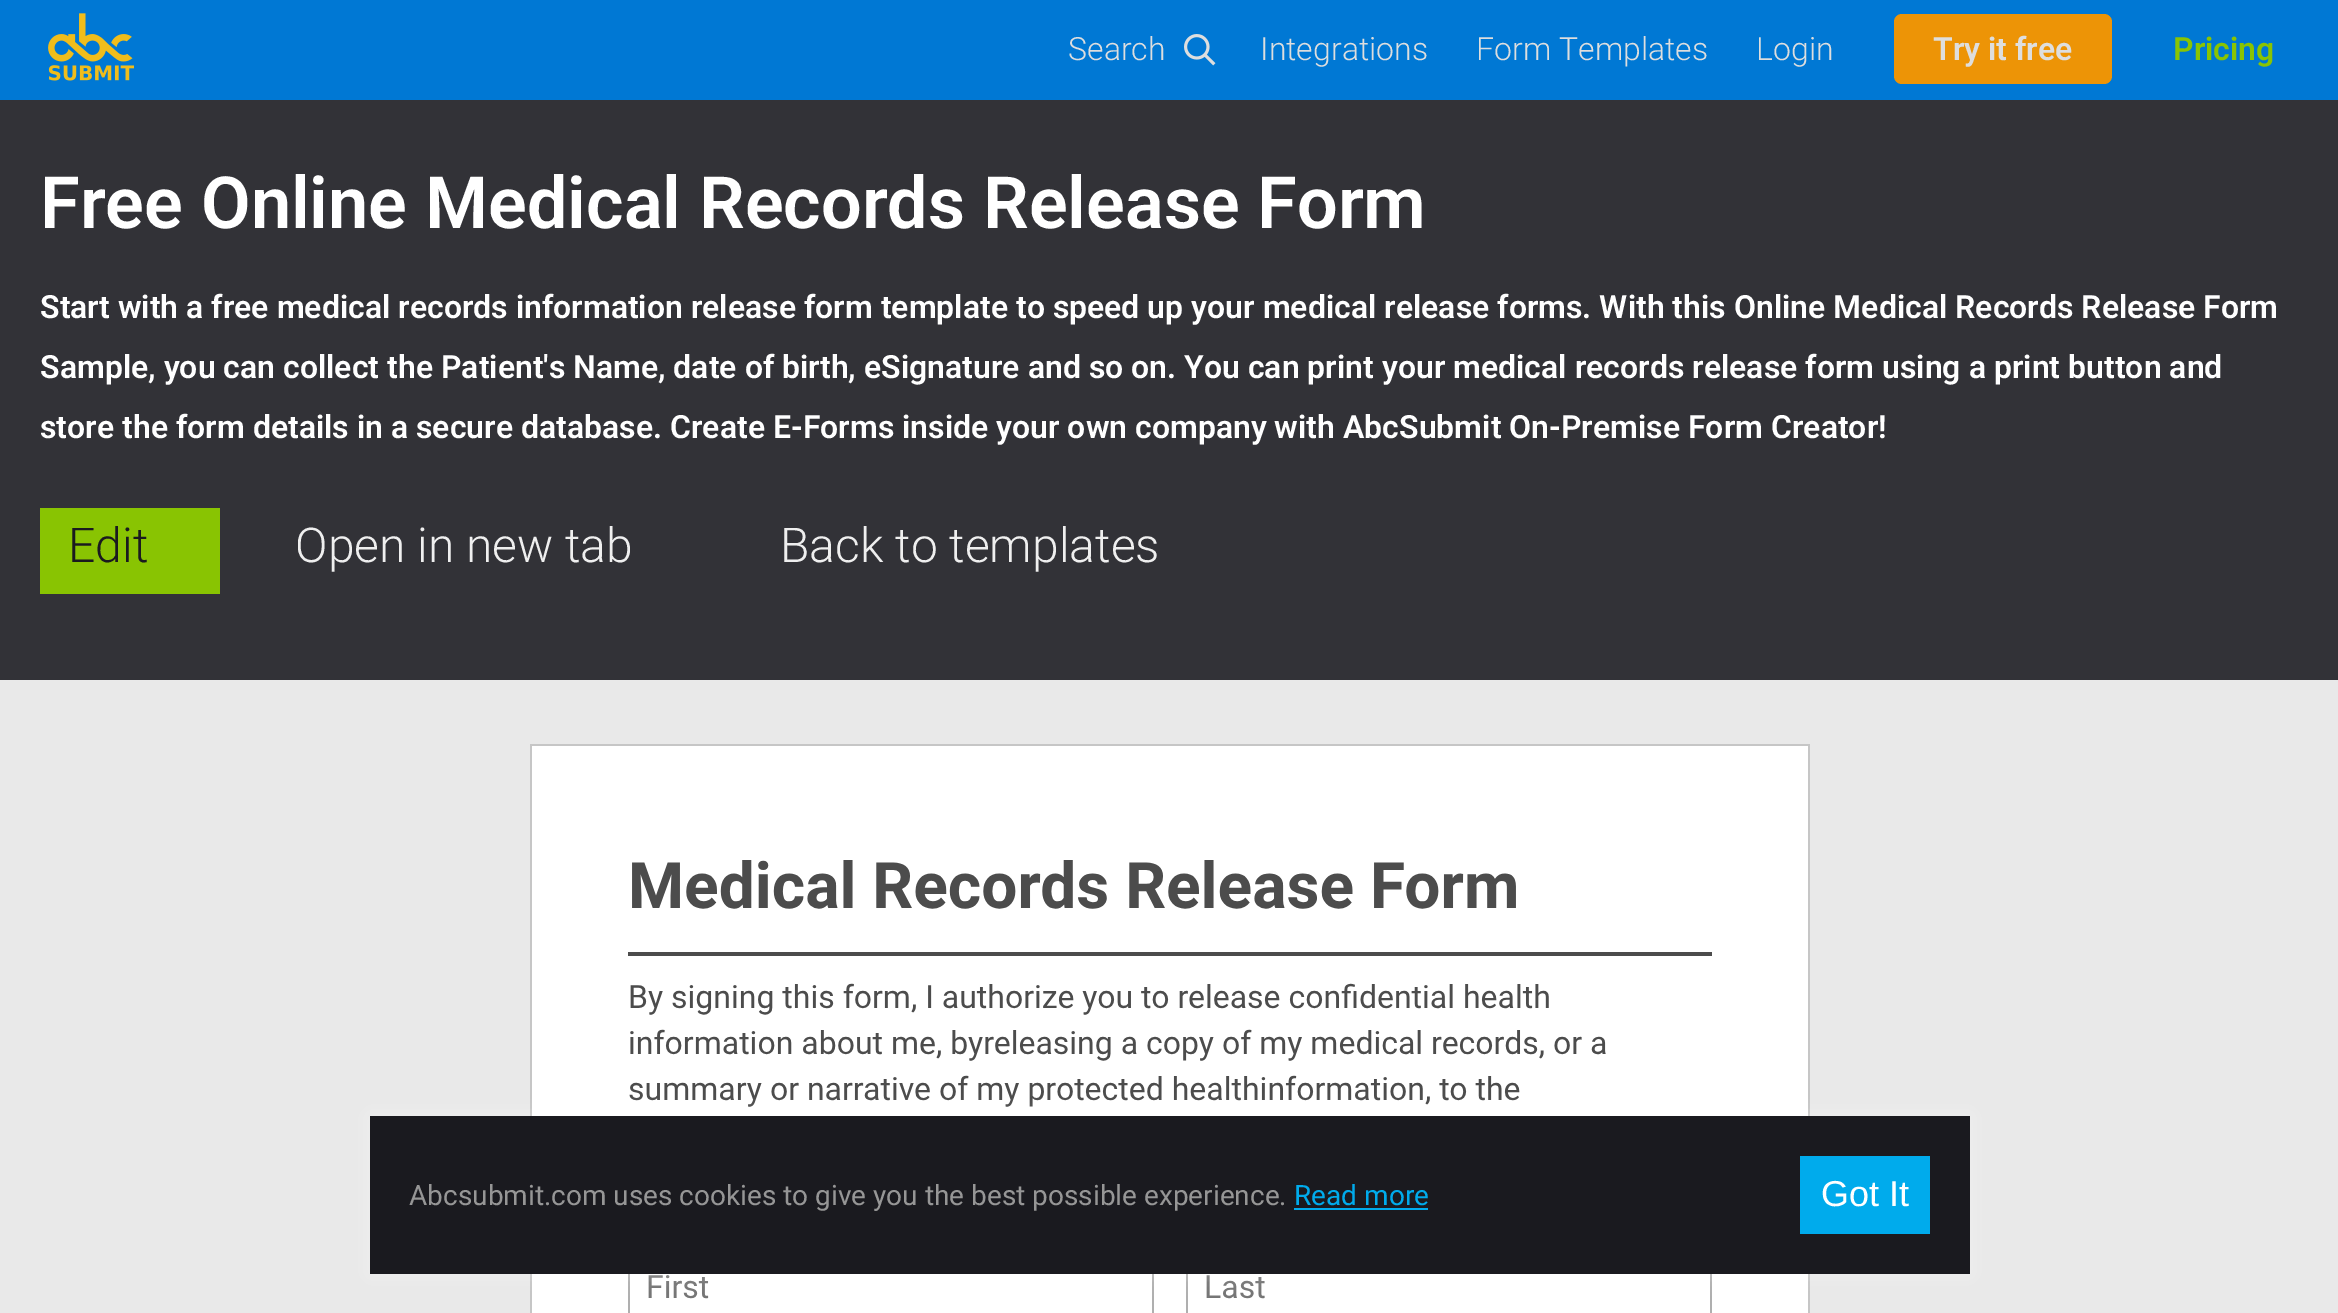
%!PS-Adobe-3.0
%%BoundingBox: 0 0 2338 1313
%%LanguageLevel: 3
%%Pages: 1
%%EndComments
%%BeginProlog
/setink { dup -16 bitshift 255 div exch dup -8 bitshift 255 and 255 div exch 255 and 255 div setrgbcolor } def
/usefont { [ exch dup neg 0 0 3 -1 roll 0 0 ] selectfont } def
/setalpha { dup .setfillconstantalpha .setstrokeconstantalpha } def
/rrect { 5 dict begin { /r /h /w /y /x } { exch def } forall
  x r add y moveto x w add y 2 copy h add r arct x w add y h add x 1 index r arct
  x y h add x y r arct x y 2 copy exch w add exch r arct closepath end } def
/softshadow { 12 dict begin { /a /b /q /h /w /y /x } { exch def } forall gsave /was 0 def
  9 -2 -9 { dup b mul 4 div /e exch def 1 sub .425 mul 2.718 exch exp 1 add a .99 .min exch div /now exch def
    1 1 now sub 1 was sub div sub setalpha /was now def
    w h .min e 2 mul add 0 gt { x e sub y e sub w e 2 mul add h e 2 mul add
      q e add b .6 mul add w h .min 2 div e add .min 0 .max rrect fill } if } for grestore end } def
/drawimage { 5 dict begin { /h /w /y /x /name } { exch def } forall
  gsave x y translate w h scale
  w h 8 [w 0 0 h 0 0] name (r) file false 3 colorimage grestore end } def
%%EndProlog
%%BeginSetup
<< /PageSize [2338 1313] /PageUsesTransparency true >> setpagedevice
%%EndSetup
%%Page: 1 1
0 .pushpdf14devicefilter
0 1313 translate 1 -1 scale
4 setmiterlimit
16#323237 setink
0 0 2338 1313 rectfill
16#0078D4 setink
0 0 2338 100 rectfill
(img1.raw) 48 13 86 68 drawimage
/Roboto-Light 32 usefont
16#DEDEDE setink
1068 60 moveto (Search) show
(img2.raw) 1184 34 32 32 drawimage
[
    [(Integrations) 1260 60]
    [(Form Templates) 1476 60]
    [(Login) 1756 60]
] { aload pop moveto show } forall
16#ED9406 setink
1894 14 218 70 8 rrect fill
/Roboto-SemiBold 32 usefont
16#DEDEDE setink
1933 60 moveto (Try it free) show
16#89C402 setink
2173 60 moveto (Pricing) show
/Roboto-SemiBold 72 usefont
16#FFFFFF setink
40 228 moveto (Free Online Medical Records Release Form) show
/Roboto-SemiBold 32 usefont
[
    [(Start with a free medical records information release form template to speed up your medical release forms. With this Online Medical Records Release Form) 40 318]
    [(Sample, you can collect the Patient's Name, date of birth, eSignature and so on. You can print your medical records release form using a print button and) 40 378]
    [(store the form details in a secure database. Create E-Forms inside your own company with AbcSubmit On-Premise Form Creator!) 40 438]
] { aload pop moveto show } forall
16#89C402 setink
40 508 180 86 rectfill
/Roboto-Light 48 usefont
16#1A1A1F setink
68 562 moveto (Edit) show
16#EFEFEF setink
295 562 moveto (Open in new tab) show
780 562 moveto (Back to templates) show
16#E9E9E9 setink
0 680 2338 633 rectfill
(img3.raw) 530 744 1280 569 drawimage
16#FFFFFF setink
370 1116 1600 158 0 10 0.3 softshadow
16#1A1A1F setink
370 1116 1600 158 rectfill
/Roboto-Regular 28 usefont
16#969696 setink
409 1205 moveto (Abcsubmit.com uses cookies to give you the best possible experience.) show
16#00ABEC setink
1294 1205 moveto (Read more) show
1294 1208 134 2 rectfill
1800 1156 130 78 rectfill
/LiberationSans-Regular 36 usefont
16#FFFFFF setink
1821 1206 moveto (Got It) show
.poppdf14devicefilter showpage
%%EOF
